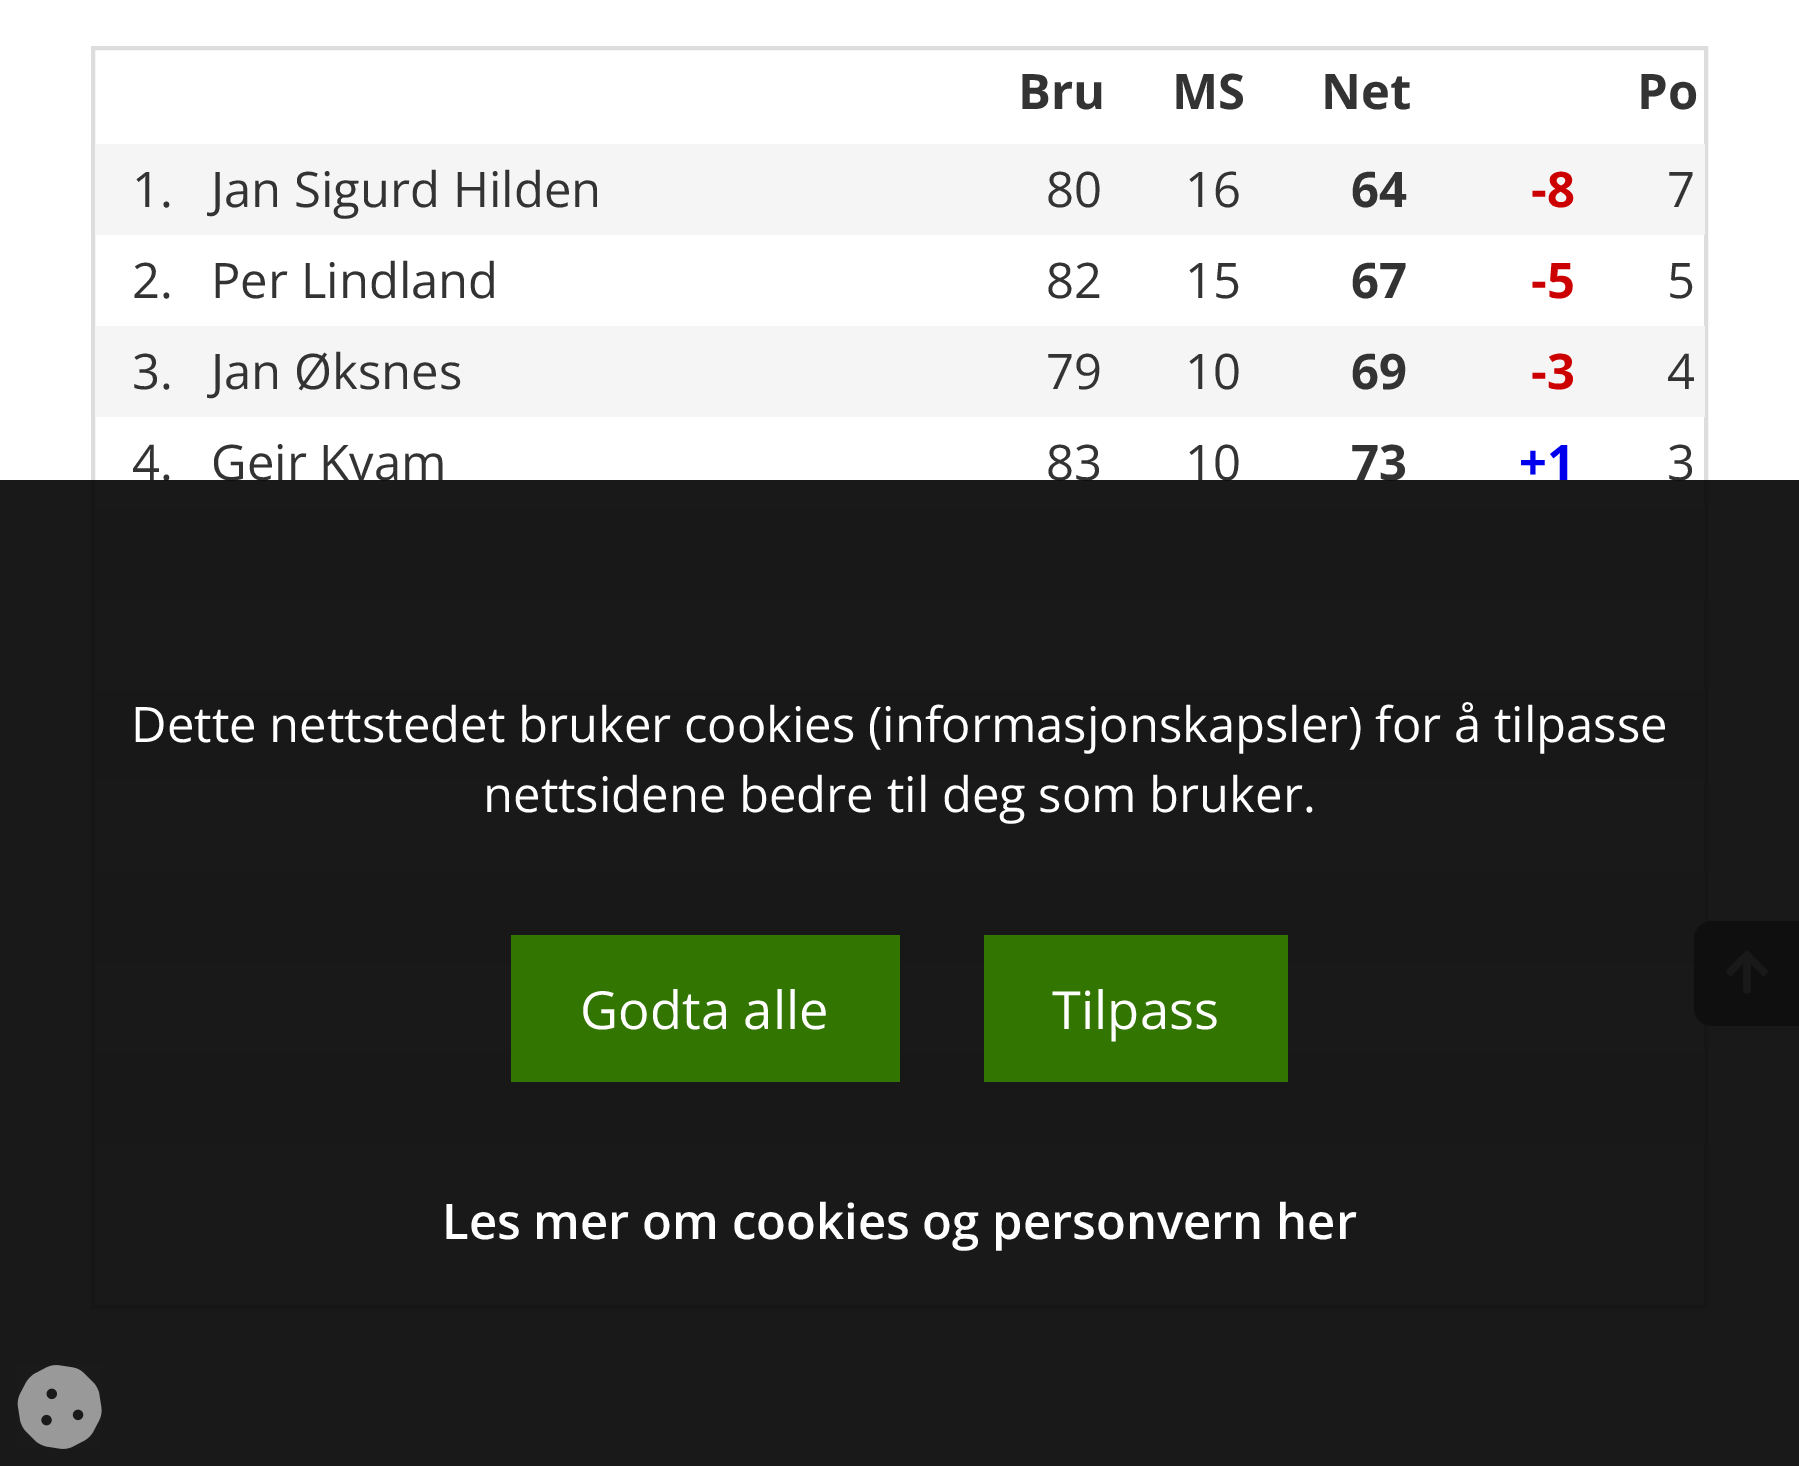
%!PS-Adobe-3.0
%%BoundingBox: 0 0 1799 1466
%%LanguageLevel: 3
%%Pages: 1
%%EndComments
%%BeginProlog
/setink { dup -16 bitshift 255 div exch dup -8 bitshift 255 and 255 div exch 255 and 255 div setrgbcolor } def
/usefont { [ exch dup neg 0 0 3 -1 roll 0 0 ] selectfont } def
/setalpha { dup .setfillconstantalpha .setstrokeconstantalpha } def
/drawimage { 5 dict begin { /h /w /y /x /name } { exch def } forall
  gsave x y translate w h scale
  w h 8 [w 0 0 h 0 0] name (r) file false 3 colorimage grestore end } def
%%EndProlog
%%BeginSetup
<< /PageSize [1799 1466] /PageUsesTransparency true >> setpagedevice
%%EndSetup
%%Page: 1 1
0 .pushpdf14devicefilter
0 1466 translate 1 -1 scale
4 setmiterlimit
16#FFFFFF setink
0 0 1799 1466 rectfill
16#DDDDDD setink
4 setlinewidth
93 48 1613 1259 rectstroke
/OpenSans-Bold 49 usefont
16#333333 setink
[
    [(Bru) 1018 109]
    [(MS) 1172 109]
    [(Net) 1321 109]
    [(Po) 1637 109]
] { aload pop moveto show } forall
16#F5F5F5 setink
95 144 1610 91 rectfill
/OpenSans-Regular 49 usefont
16#333333 setink
[
    [(1.) 132 207]
    [(Jan Sigurd Hilden) 211 207]
    [(80) 1046 207]
    [(16) 1185 207]
] { aload pop moveto show } forall
/OpenSans-Bold 49 usefont
1351 207 moveto (64) show
16#CC0000 setink
1531 207 moveto (-8) show
/OpenSans-Regular 49 usefont
16#333333 setink
[
    [(7) 1667 207]
    [(2.) 132 298]
    [(Per Lindland) 211 298]
    [(82) 1046 298]
    [(15) 1185 298]
] { aload pop moveto show } forall
/OpenSans-Bold 49 usefont
1351 298 moveto (67) show
16#CC0000 setink
1531 298 moveto (-5) show
/OpenSans-Regular 49 usefont
16#333333 setink
1667 298 moveto (5) show
16#F5F5F5 setink
95 326 1610 91 rectfill
16#333333 setink
[
    [(3.) 132 389]
    [(Jan Øksnes) 211 389]
    [(79) 1046 389]
    [(10) 1185 389]
] { aload pop moveto show } forall
/OpenSans-Bold 49 usefont
1351 389 moveto (69) show
16#CC0000 setink
1531 389 moveto (-3) show
/OpenSans-Regular 49 usefont
16#333333 setink
[
    [(4) 1667 389]
    [(4.) 132 480]
    [(Geir Kvam) 211 480]
    [(83) 1046 480]
    [(10) 1185 480]
] { aload pop moveto show } forall
/OpenSans-Bold 49 usefont
1351 480 moveto (73) show
16#0000EE setink
1519 480 moveto (+1) show
/OpenSans-Regular 49 usefont
16#333333 setink
1667 480 moveto (3) show
[
    [95 508 1610 91 16#F5F5F5]
    [95 690 1610 91 16#F5F5F5]
    [95 872 1610 91 16#F5F5F5]
    [95 1054 1610 91 16#F5F5F5]
] { aload pop setink rectfill } forall
16#999999 setink
1712 921 moveto 1799 921 lineto 1799 1026 lineto 1712 1026 lineto 1702 1026 1694 1018 1694 1008 curveto 1694 939 lineto 1694 929 1702 921 1712 921 curveto closepath fill
(img1.raw) 1726 950 42 44 drawimage
0.9 setalpha
16#000000 setink
0 480 1799 986 rectfill
1 setalpha
16#FFFFFF setink
131 742 moveto (Dette nettstedet bruker cookies \(informasjonskapsler\) for å tilpasse) show
483 812 moveto (nettsidene bedre til deg som bruker.) show
16#327500 setink
511 935 389 147 rectfill
/OpenSans-Regular 52.5 usefont
16#FFFFFF setink
580 1029 moveto (Godta alle) show
16#327500 setink
984 935 304 147 rectfill
16#FFFFFF setink
1052 1029 moveto (Tilpass) show
/OpenSans-SemiBold 49 usefont
442 1239 moveto (Les mer om cookies og personvern her) show
(img2.raw) 17 1365 85 84 drawimage
.poppdf14devicefilter showpage
%%EOF
